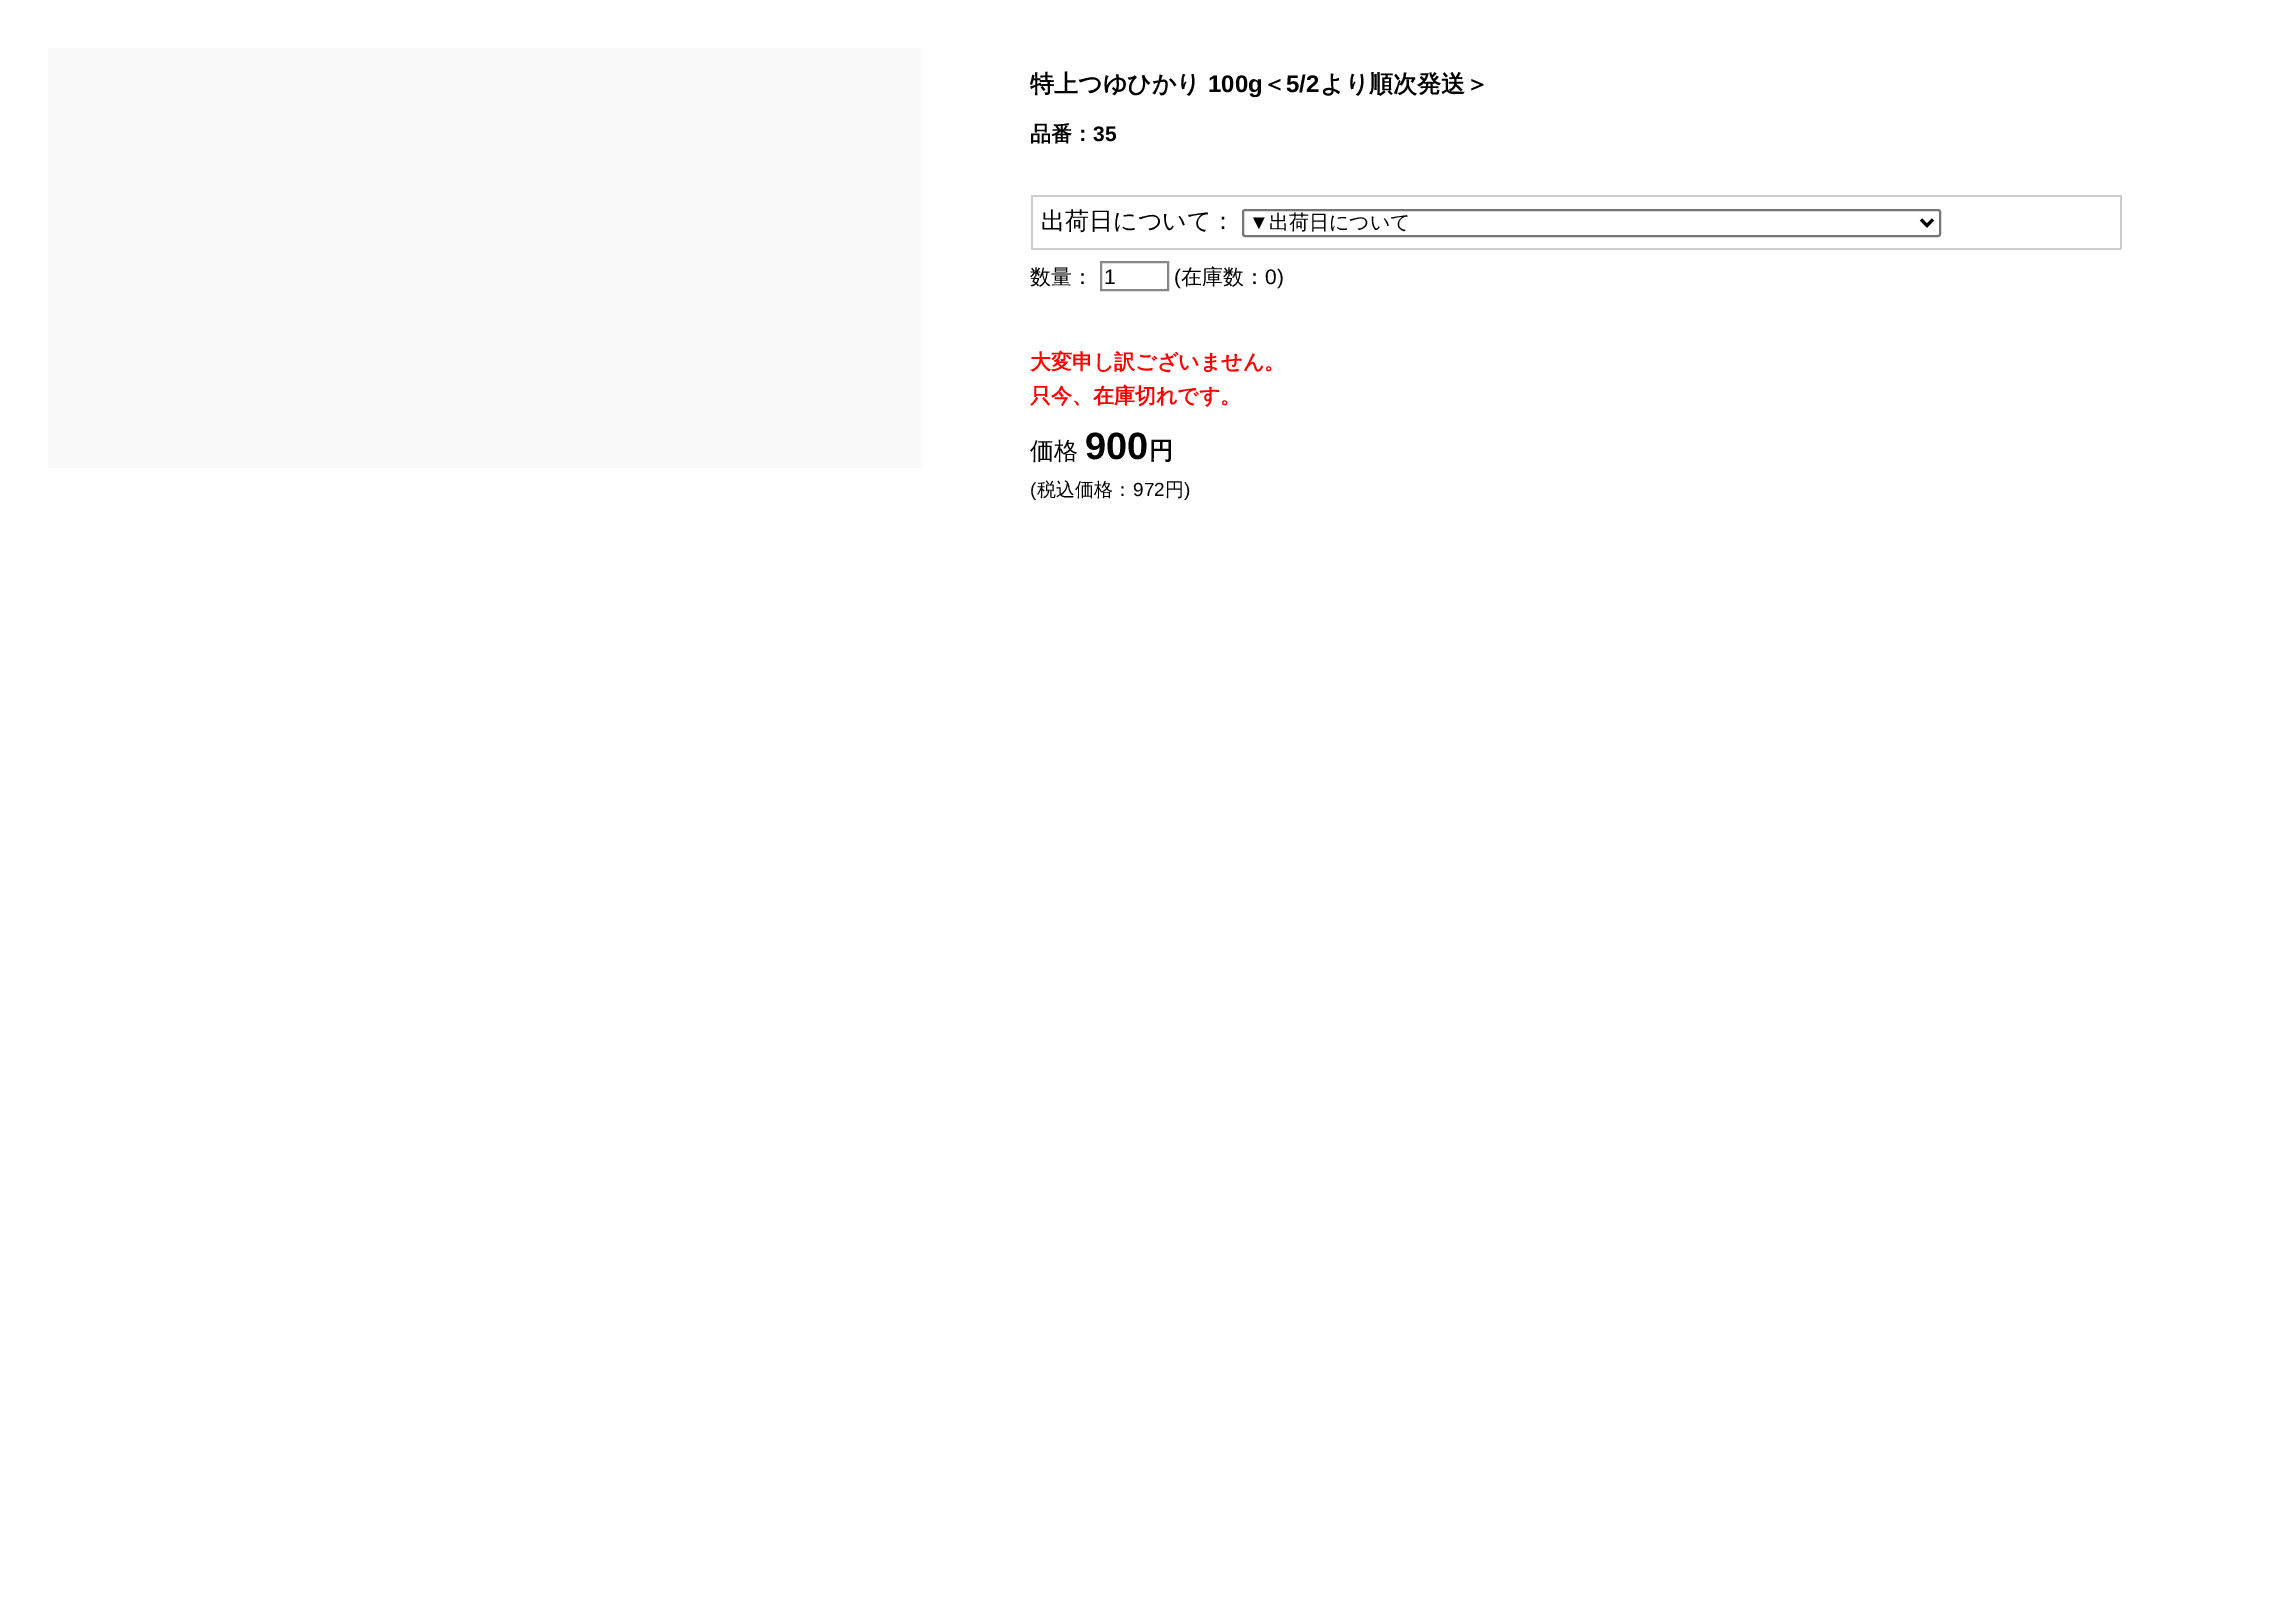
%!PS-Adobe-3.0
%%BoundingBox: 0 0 2278 1599
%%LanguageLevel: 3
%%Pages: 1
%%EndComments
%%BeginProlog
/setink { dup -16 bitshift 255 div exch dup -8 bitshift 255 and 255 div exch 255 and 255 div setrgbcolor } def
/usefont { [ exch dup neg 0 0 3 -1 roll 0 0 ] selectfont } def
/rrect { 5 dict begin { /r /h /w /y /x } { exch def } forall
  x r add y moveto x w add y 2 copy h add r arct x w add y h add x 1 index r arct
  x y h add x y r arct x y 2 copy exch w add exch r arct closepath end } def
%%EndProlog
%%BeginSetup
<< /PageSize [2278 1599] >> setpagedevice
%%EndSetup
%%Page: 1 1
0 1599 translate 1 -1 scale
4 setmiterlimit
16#FFFFFF setink
0 0 2278 1599 rectfill
16#F9F9F9 setink
48 48 873 420 rectfill
/WenQuanYiZenHei-Bold 24 usefont
16#000000 setink
1030 92 moveto (特上つゆひかり) show
/LiberationSans-Bold 24 usefont
1208 92 moveto (100g) show
/WenQuanYiZenHei-Bold 24 usefont
1262 92 moveto (＜) show
/LiberationSans-Bold 24 usefont
1286 92 moveto (5/2) show
/WenQuanYiZenHei-Bold 24 usefont
1320 92 moveto (より順次発送＞) show
/WenQuanYiZenHei-Bold 21 usefont
1030 141 moveto (品番：) show
/LiberationSans-Bold 21 usefont
1093 141 moveto (35) show
[
    [1031 195 1090 2 16#CCCCCC]
    [2120 195 2 54 16#CCCCCC]
    [1031 248 1090 2 16#CCCCCC]
    [1031 195 2 54 16#CCCCCC]
] { aload pop setink rectfill } forall
/WenQuanYiZenHei-Medium 24 usefont
16#000000 setink
1041 229 moveto (出荷日について：) show
16#767676 setink
2 setlinewidth
1243 210 697 26 2 rrect stroke
16#000000 setink
3 setlinewidth
1921 219.5 moveto 1927 225.5 lineto 1933 219.5 lineto stroke
/LiberationSans-Regular 20 usefont
1249 229 moveto (▼) show
/WenQuanYiZenHei-Medium 20 usefont
1269 229 moveto (出荷日について) show
/WenQuanYiZenHei-Medium 21 usefont
1030 284 moveto (数量：) show
16#888888 setink
2 setlinewidth
1101 262 67 28 rectstroke
/LiberationSans-Regular 21 usefont
16#000000 setink
1104 284 moveto (1) show
1174 284 moveto (\() show
/WenQuanYiZenHei-Medium 21 usefont
1181 284 moveto (在庫数：) show
/LiberationSans-Regular 21 usefont
1265 284 moveto (0\)) show
/WenQuanYiZenHei-Bold 21 usefont
16#FF0000 setink
1030 369 moveto (大変申し訳ございません。) show
1030 403 moveto (只今、在庫切れです。) show
/WenQuanYiZenHei-Medium 24 usefont
16#000000 setink
1030 459 moveto (価格) show
/LiberationSans-Bold 38 usefont
1085 459 moveto (900) show
/WenQuanYiZenHei-Bold 24 usefont
1149 459 moveto (円) show
/LiberationSans-Regular 19 usefont
1030 496 moveto (\() show
/WenQuanYiZenHei-Medium 19 usefont
1037 496 moveto (税込価格：) show
/LiberationSans-Regular 19 usefont
1133 496 moveto (972) show
/WenQuanYiZenHei-Medium 19 usefont
1165 496 moveto (円) show
/LiberationSans-Regular 19 usefont
1184 496 moveto (\)) show
showpage
%%EOF
